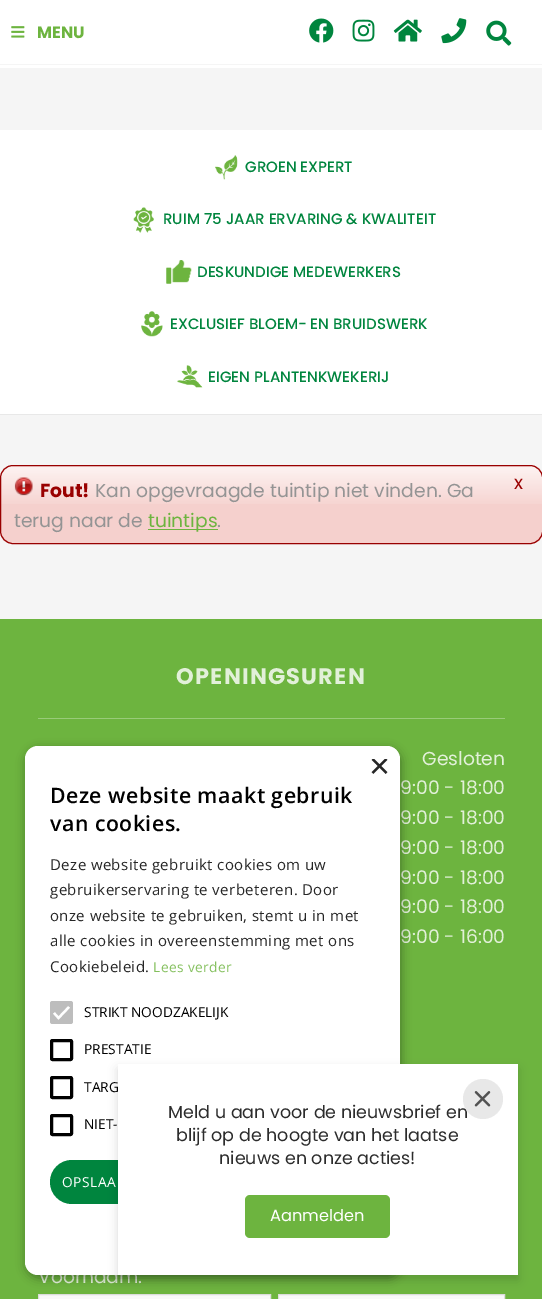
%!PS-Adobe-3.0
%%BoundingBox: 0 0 542 1299
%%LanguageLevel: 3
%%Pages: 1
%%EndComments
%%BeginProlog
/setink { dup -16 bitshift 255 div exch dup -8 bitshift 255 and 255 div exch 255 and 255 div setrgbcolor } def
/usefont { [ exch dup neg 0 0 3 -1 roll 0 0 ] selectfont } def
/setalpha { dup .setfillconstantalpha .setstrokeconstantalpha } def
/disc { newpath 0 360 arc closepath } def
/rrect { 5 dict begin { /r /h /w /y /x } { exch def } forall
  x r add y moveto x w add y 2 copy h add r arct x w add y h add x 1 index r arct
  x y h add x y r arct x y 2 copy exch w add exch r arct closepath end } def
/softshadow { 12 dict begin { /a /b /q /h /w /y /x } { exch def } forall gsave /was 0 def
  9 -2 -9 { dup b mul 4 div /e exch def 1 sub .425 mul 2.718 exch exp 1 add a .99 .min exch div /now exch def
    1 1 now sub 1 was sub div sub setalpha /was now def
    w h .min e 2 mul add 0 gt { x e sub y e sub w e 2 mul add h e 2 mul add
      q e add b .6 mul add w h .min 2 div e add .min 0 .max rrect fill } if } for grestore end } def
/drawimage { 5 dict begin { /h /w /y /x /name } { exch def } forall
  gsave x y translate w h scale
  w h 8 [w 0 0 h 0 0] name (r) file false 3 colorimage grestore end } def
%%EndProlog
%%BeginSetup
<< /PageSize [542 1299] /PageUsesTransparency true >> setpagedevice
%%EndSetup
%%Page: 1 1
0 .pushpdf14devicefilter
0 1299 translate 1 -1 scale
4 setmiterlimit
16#F5F5F5 setink
0 0 542 1299 rectfill
16#FFFFFF setink
0 0 542 64 rectfill
(img1.raw) 11 26 14 12 drawimage
/Poppins-Bold 16.25 usefont
16#6DB43F setink
37 38 moveto (MENU) show
(img2.raw) 309 18 25 25 drawimage
(img3.raw) 352 19 23 23 drawimage
(img4.raw) 393 19 29 23 drawimage
(img5.raw) 441 18 26 26 drawimage
(img6.raw) 486 20 26 26 drawimage
16#FFFFFF setink
0 65 542 3 rectfill
16#F5D0CD setink
0 465 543 79 13 rrect fill
(img7.raw) 0 466 542 38 drawimage
16#990000 setink
0.5 465.5 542 78 12.5 rrect stroke
(img8.raw) 14 477 19 19 drawimage
/Poppins-Bold 18.75 usefont
40 497 moveto (Fout!) show
/Poppins-Regular 18.75 usefont
16#949494 setink
95 497 moveto (Kan opgevraagde tuintip niet vinden. Ga) show
14 527 moveto (terug naar de) show
16#6DB43F setink
148 529 70 1 rectfill
148 527 moveto (tuintips) show
16#949494 setink
217 527 moveto (.) show
16#990000 setink
514 489 moveto (x) show
16#FFFFFF setink
0 130 542 284 rectfill
16#E8E8E8 setink
0 414 542 1 rectfill
(img9.raw) 215 155 23 25 drawimage
/Poppins-Medium 15 usefont
16#00853E setink
245 172 moveto (GROEN EXPERT) show
(img10.raw) 133 207 21 26 drawimage
163 224 moveto (RUIM 75 JAAR ERVARING & KWALITEIT) show
(img11.raw) 166 260 26 24 drawimage
197 277 moveto (DESKUNDIGE MEDEWERKERS) show
(img12.raw) 141 311 22 26 drawimage
170 329 moveto (EXCLUSIEF BLOEM- EN BRUIDSWERK) show
(img13.raw) 177 365 26 23 drawimage
208 382 moveto (EIGEN PLANTENKWEKERIJ) show
16#6DB43F setink
0 619 542 680 rectfill
16#99CB79 setink
38 718 467 1 rectfill
/Poppins-Bold 22.5 usefont
16#E2F0D9 setink
176 684 moveto 1.25 0 (OPENINGSUREN) ashow
/Poppins-Regular 18.75 usefont
[
    [(Gesloten) 422 765]
    [(9:00 - 18:00) 400 794]
    [(9:00 - 18:00) 400 824]
    [(9:00 - 18:00) 400 854]
    [(9:00 - 18:00) 400 884]
    [(9:00 - 18:00) 400 913]
    [(9:00 - 16:00) 400 943]
    [(Voornaam:) 38 1283]
] { aload pop moveto show } forall
16#F9F9F9 setink
38.5 1294.5 moveto 270.5 1294.5 lineto 270.5 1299.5 lineto 38.5 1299.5 lineto closepath gsave fill grestore
16#DCDCDC setink
stroke
16#F9F9F9 setink
278.5 1294.5 moveto 504.5 1294.5 lineto 504.5 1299.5 lineto 278.5 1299.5 lineto closepath gsave fill grestore
16#DCDCDC setink
stroke
16#000000 setink
26 749 375 529 13 5 0.35 softshadow
16#FFFFFF setink
25 746 375 529 13 rrect fill
gsave
369 759 19 19 rectclip
/LiberationSans-Regular 36 usefont
16#262626 setink
369 778 moveto (×) show
grestore
/OpenSans-SemiBold 21.25 usefont
16#000000 setink
50 803 moveto 0.5 0 (Deze website maakt gebruik) ashow
50 831 moveto 0.5 0 (van cookies.) ashow
/OpenSans-Regular 15 usefont
16#262626 setink
50 870 moveto 0.4 0 (Deze website gebruikt cookies om uw) ashow
50 895 moveto 0.4 0 (gebruikerservaring te verbeteren. Door) ashow
50 921 moveto 0.4 0 (onze website te gebruiken, stemt u in met) ashow
50 946 moveto 0.4 0 (alle cookies in overeenstemming met ons) ashow
50 972 moveto 0.4 0 (Cookiebeleid.) ashow
/OpenSans-Regular 13.75 usefont
16#83BF5C setink
153 972 moveto 0.4 0 (Lees verder) ashow
16#BDBDBD setink
50 1001 23 23 2.5 rrect fill
16#FFFFFF setink
2.3 setlinewidth
54 1013 moveto 58.5 1018 lineto 69 1007 lineto stroke
16#000000 setink
84 1017 moveto (STRIKT NOODZAKELIJK) show
3 setlinewidth
51.5 1040.5 20 19 1 rrect stroke
84 1054 moveto (PRESTATIE) show
51.5 1077.5 20 20 1 rrect stroke
84 1092 moveto (TARG) show
51.5 1115.5 20 19 1 rrect stroke
84 1129 moveto (NIET-) show
16#00853E setink
50 1160 175 44 22 rrect fill
16#FFFFFF setink
62 1187 moveto 0.5 0 (OPSLAA) ashow
16#000000 setink
118 1069 400 211 0 5 0.15 softshadow
16#FFFFFF setink
118 1064 400 211 rectfill
/Poppins-Regular 17.5 usefont
16#2C2C2C setink
168 1118 moveto (Meld u aan voor de nieuwsbrief en) show
16#E8E8E8 setink
483 1099 20 disc fill
(img14.raw) 474 1091 17 16 drawimage
16#2C2C2C setink
176 1141 moveto (blijf op de hoogte van het laatse) show
219 1164 moveto (nieuws en onze acties!) show
16#6DB43F setink
245 1195 145 43 5 rrect fill
/Poppins-Regular 16.25 usefont
16#FFFFFF setink
270 1221 moveto (Aanmelden) show
.poppdf14devicefilter showpage
%%EOF
